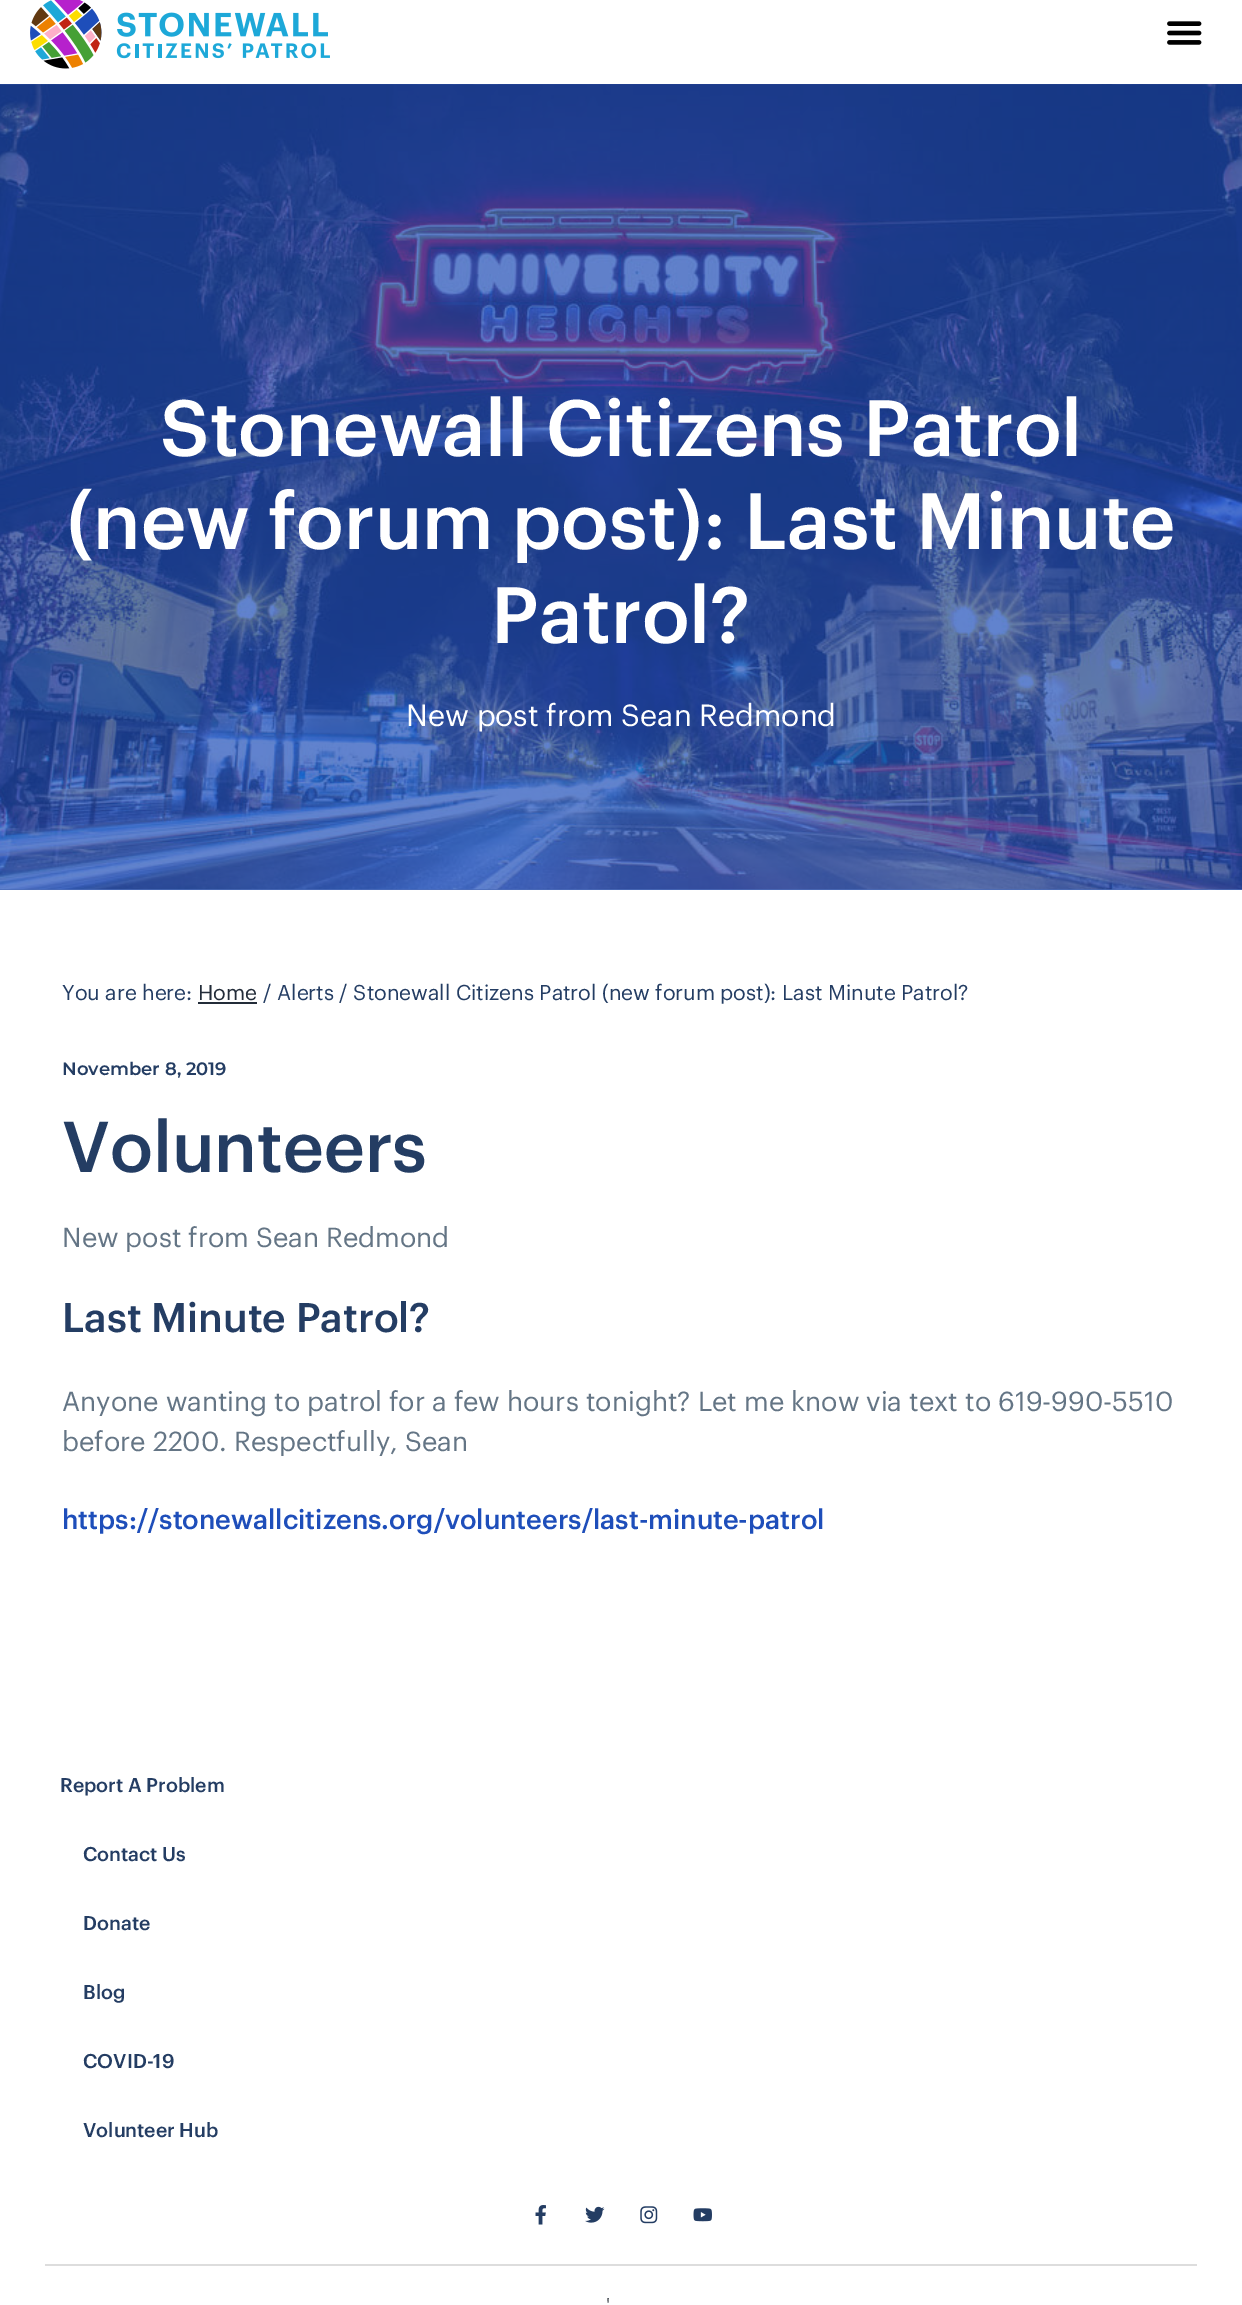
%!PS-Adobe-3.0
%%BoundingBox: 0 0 1242 2305
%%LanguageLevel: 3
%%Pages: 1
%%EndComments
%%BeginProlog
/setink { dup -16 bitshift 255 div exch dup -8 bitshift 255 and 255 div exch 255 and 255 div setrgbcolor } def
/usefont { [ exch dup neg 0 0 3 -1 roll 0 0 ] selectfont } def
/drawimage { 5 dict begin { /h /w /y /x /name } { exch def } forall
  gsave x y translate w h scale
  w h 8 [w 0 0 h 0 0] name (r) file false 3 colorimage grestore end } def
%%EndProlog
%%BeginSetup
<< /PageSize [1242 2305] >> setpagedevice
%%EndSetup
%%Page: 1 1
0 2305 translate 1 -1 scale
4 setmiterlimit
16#FFFFFF setink
0 0 1242 2305 rectfill
16#6283CF setink
0 889 1242 1 rectfill
(img1.raw) 30 0 300 69 drawimage
(img2.raw) 1167 21 35 24 drawimage
(img3.raw) 0 84 1242 806 drawimage
/Graphik-Medium 78 usefont
16#FFFFFF setink
[
    [(Stonewall Citizens Patrol) 160 456]
    [(\(new forum post\): Last Minute) 67 549]
    [(Patrol?) 491 643]
] { aload pop moveto show } forall
/Graphik-Regular 30 usefont
406 726 moveto (New post from Sean Redmond) show
/Graphik-Regular 21 usefont
16#243D63 setink
62 1000 moveto (You are here:) show
16#232C39 setink
198 1000 moveto (Home) show
198 1002 59 2 rectfill
16#243D63 setink
263 1000 moveto (/ Alerts / Stonewall Citizens Patrol \(new forum post\): Last Minute Patrol?) show
/Montserrat-Thin 18 usefont
62 1075 moveto (November 8, 2019) show
/Graphik-Medium 70.25 usefont
62 1172 moveto (Volunteers) show
/Graphik-Regular 27 usefont
16#647585 setink
62 1247 moveto (New post from Sean Redmond) show
/Graphik-Medium 40.5 usefont
16#243D63 setink
62 1332 moveto (Last Minute Patrol?) show
/Graphik-Regular 27 usefont
16#647585 setink
62 1411 moveto (Anyone wanting to patrol for a few hours tonight? Let me know via text to 619-990-5510) show
62 1451 moveto (before 2200. Respectfully, Sean) show
/Graphik-Medium 27 usefont
16#1E4EBA setink
62 1529 moveto (https://stonewallcitizens.org/volunteers/last-minute-patrol) show
16#DDDDDD setink
45 2264 1152 2 rectfill
/Graphik-Medium 19.5 usefont
16#243D63 setink
[
    [(Report A Problem) 60 1792]
    [(Contact Us) 83 1861]
    [(Donate) 83 1930]
    [(Blog) 83 1999]
    [(COVID-19) 83 2068]
    [(Volunteer Hub) 83 2137]
] { aload pop moveto show } forall
(img4.raw) 535 2205 11 20 drawimage
(img5.raw) 585 2206 20 17 drawimage
(img6.raw) 640 2206 18 18 drawimage
(img7.raw) 693 2208 19 14 drawimage
/Graphik-Regular 19.5 usefont
16#54595F setink
606 2312 moveto (') show
showpage
%%EOF
